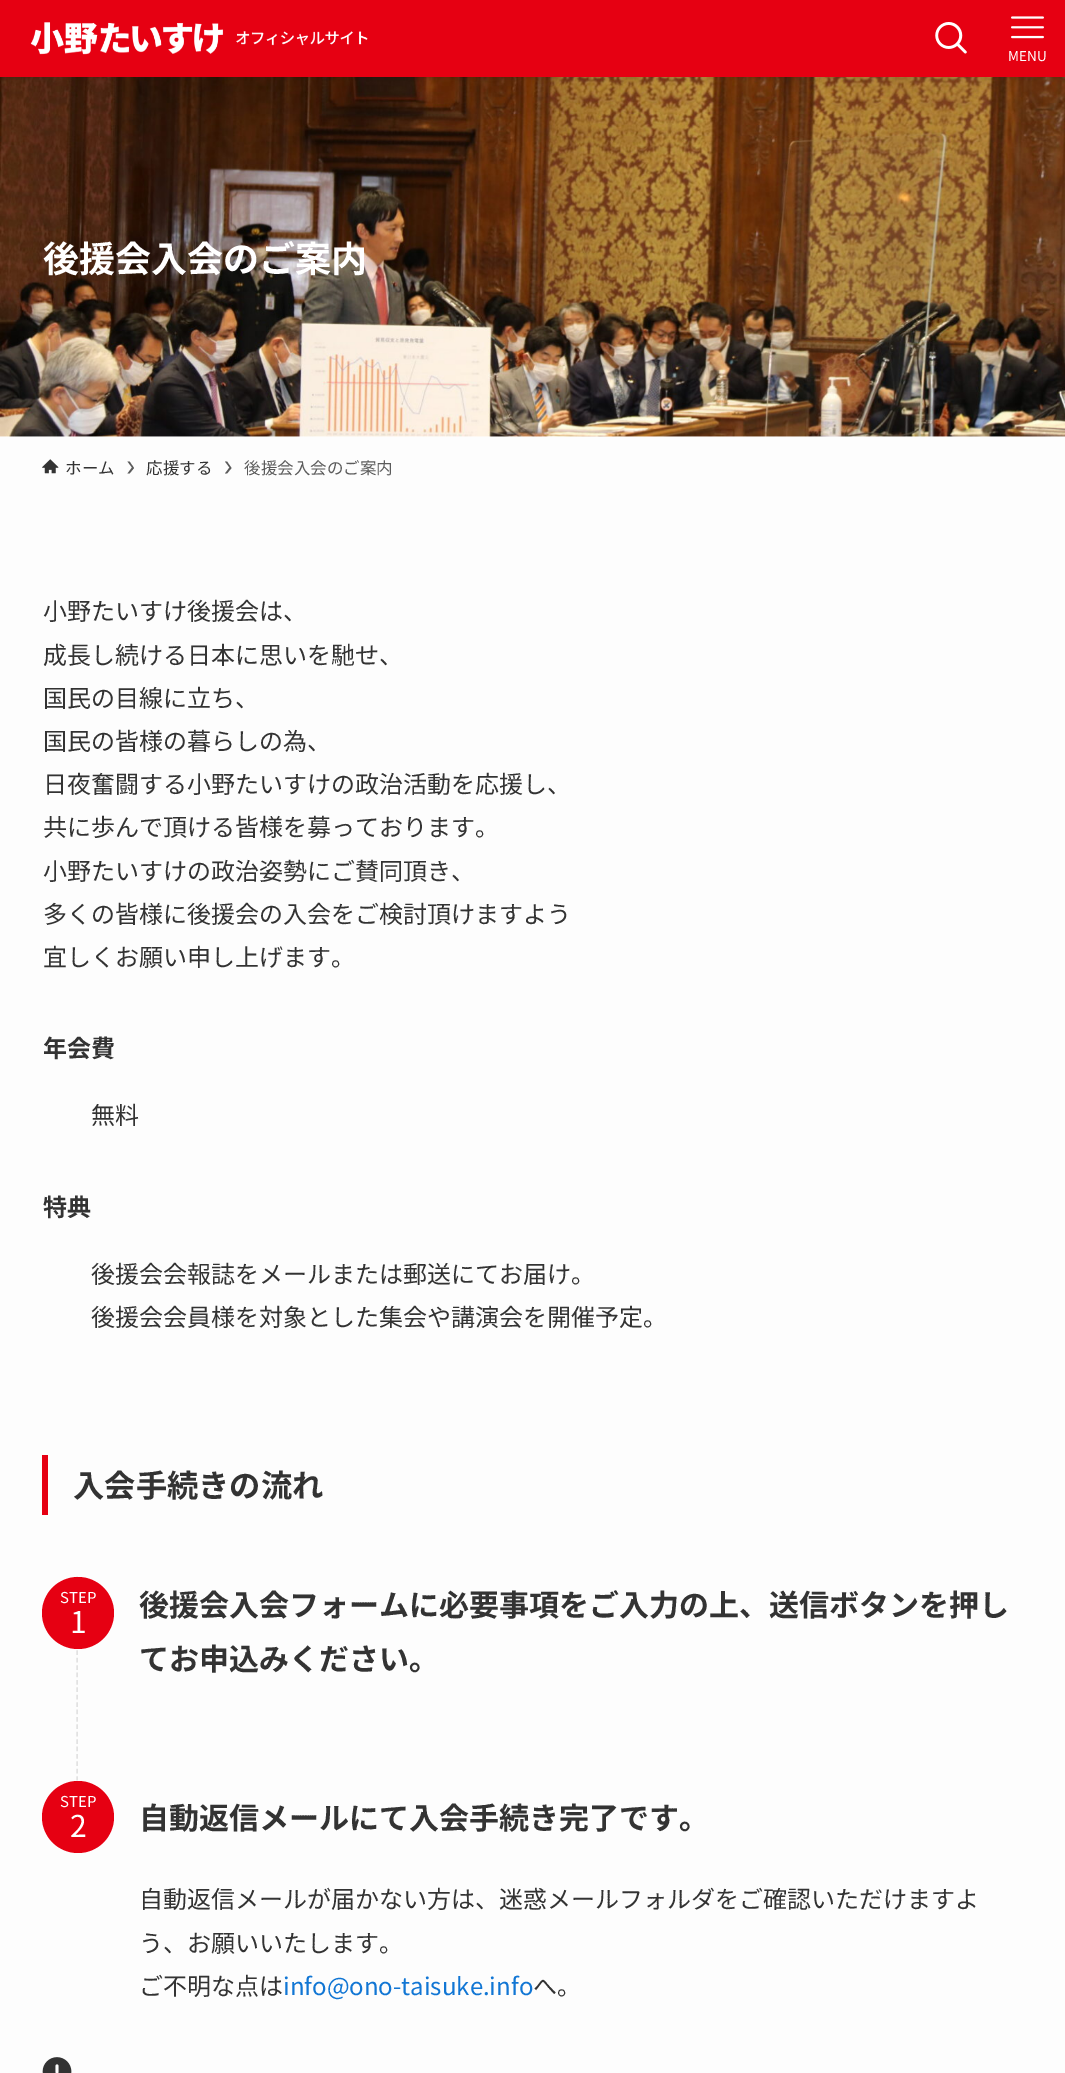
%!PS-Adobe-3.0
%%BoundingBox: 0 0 1065 2073
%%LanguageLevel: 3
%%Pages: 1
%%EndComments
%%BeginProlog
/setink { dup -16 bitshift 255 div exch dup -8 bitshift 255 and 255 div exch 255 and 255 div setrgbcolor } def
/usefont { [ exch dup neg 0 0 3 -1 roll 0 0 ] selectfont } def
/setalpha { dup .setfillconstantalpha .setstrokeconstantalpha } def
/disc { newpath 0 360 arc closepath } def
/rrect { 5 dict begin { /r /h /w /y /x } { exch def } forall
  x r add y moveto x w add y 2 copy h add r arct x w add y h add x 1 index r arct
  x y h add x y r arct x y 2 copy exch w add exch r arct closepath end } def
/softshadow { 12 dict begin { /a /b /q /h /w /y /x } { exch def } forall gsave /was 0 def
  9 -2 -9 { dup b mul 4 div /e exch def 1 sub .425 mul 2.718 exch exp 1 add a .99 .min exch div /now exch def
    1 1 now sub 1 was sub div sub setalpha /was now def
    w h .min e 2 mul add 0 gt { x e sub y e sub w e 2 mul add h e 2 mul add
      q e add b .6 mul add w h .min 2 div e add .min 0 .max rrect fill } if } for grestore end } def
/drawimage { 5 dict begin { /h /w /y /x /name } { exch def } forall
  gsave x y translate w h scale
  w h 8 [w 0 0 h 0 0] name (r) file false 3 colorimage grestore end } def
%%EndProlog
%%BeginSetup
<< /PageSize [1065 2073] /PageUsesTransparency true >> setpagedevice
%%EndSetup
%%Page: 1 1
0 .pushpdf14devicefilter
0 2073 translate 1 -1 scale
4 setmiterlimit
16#FDFDFD setink
0 0 1065 2073 rectfill
(img4.raw) 0 77 1065 360 drawimage
16#000000 setink
0 2 1065 76 0 3 0.12 softshadow
16#E60012 setink
0 0 1065 77 rectfill
(img1.raw) 30 22 338 33 drawimage
(img2.raw) 935 22 32 32 drawimage
(img3.raw) 1011 16 33 23 drawimage
/NotoSansJP-Regular 13.5 usefont
16#FFFFFF setink
1008 61 moveto (MENU) show
/NotoSansJP-Bold 36 usefont
43 272 moveto (後援会入会のご案内) show
(img5.raw) 42 459 17 15 drawimage
/NotoSansJP-Regular 16.5 usefont
16#333333 setink
65 474 moveto (ホーム) show
16#5B5B5B setink
129.5 461.5 moveto 127.5 461.5 lineto 132 467.5 lineto 127.5 473.5 lineto 129.5 473.5 lineto 134 468 lineto closepath fill
16#333333 setink
146 474 moveto (応援する) show
16#5B5B5B setink
227 461.5 moveto 225 461.5 lineto 229.5 467.5 lineto 225 473.5 lineto 227 473.5 lineto 231.5 468 lineto closepath fill
244 474 moveto (後援会入会のご案内) show
/NotoSansJP-Regular 24 usefont
16#333333 setink
[
    [(小野たいすけ後援会は、) 43 620]
    [(成長し続ける日本に思いを馳せ、) 43 664]
    [(国民の目線に立ち、) 43 707]
    [(国民の皆様の暮らしの為、) 43 750]
    [(日夜奮闘する小野たいすけの政治活動を応援し、) 43 793]
    [(共に歩んで頂ける皆様を募っております。) 43 836]
    [(小野たいすけの政治姿勢にご賛同頂き、) 43 880]
    [(多くの皆様に後援会の入会をご検討頂けますよう) 43 923]
    [(宜しくお願い申し上げます。) 43 966]
] { aload pop moveto show } forall
/NotoSansJP-Bold 24 usefont
43 1057 moveto (年会費) show
/NotoSansJP-Regular 24 usefont
91 1124 moveto (無料) show
/NotoSansJP-Bold 24 usefont
43 1216 moveto (特典) show
/NotoSansJP-Regular 24 usefont
91 1283 moveto (後援会会報誌をメールまたは郵送にてお届け。) show
91 1326 moveto (後援会会員様を対象とした集会や講演会を開催予定。) show
16#E60012 setink
42 1455 6 60 rectfill
/NotoSansJP-Bold 31.25 usefont
16#333333 setink
73 1497 moveto (入会手続きの流れ) show
16#E2E2E2 setink
1.5 setlinewidth
[4.5 2.9] 0 setdash
77 1576.5 moveto 77 1780.5 lineto stroke
/NotoSansJP-Bold 30 usefont
16#333333 setink
139 1616 moveto (後援会入会フォームに必要事項をご入力の上、送信ボタンを押し) show
139 1670 moveto (てお申込みください。) show
16#E60012 setink
78 1613 36 disc fill
/NotoSansJP-Regular 15 usefont
16#FFFFFF setink
60 1603 moveto (STEP) show
/NotoSansJP-Regular 30 usefont
70 1633 moveto (1) show
16#E60012 setink
78 1817 36 disc fill
/NotoSansJP-Regular 15 usefont
16#FFFFFF setink
60 1807 moveto (STEP) show
/NotoSansJP-Regular 30 usefont
70 1837 moveto (2) show
/NotoSansJP-Bold 30 usefont
16#333333 setink
139 1829 moveto (自動返信メールにて入会手続き完了です。) show
/NotoSansJP-Regular 24 usefont
[
    [(自動返信メールが届かない方は、迷惑メールフォルダをご確認いただけますよ) 139 1908]
    [(う、お願いいたします。) 139 1952]
    [(ご不明な点は) 139 1995]
] { aload pop moveto show } forall
16#1176D4 setink
283 1995 moveto (info@ono-taisuke.info) show
16#333333 setink
533 1995 moveto (へ。) show
(img6.raw) 42 2057 30 16 drawimage
.poppdf14devicefilter showpage
%%EOF
